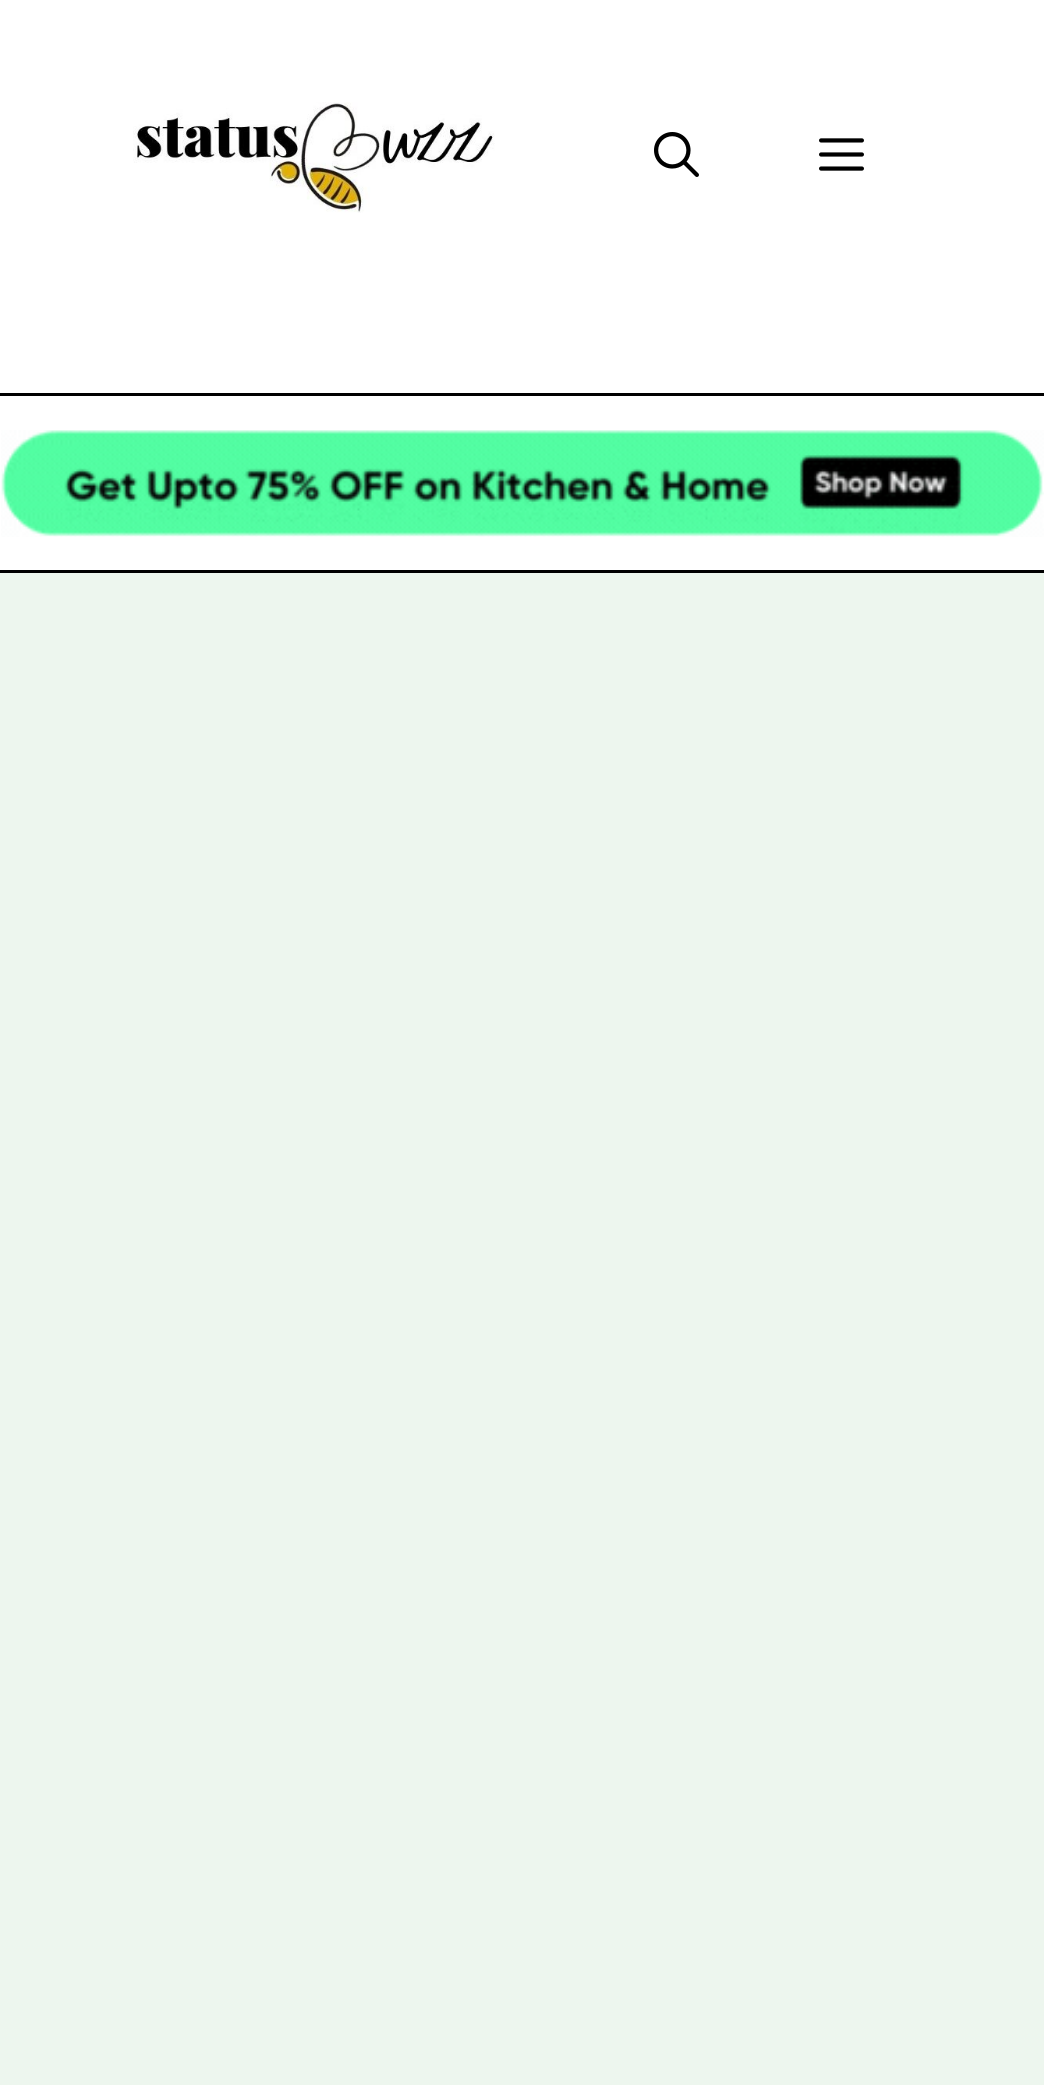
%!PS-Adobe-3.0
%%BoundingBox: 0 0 1044 2094
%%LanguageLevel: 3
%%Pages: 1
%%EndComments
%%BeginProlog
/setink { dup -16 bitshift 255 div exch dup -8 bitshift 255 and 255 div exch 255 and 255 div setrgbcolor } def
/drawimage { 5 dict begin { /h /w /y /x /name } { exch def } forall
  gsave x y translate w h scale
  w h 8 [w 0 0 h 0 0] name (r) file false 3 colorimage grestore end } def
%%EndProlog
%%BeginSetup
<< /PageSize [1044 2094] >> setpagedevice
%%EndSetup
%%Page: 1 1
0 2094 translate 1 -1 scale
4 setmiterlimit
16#EDF6EE setink
0 0 1044 2094 rectfill
16#FFFFFF setink
0 0 1044 393 rectfill
(img1.raw) 133 102 362 111 drawimage
(img2.raw) 654 132 45 45 drawimage
(img3.raw) 819 138 45 33 drawimage
[
    [0 396 1044 174 16#FFFFFF]
    [0 393 1044 3 16#000000]
    [0 570 1044 3 16#000000]
] { aload pop setink rectfill } forall
(img4.raw) 1 430 1043 107 drawimage
16#FFFFFF setink
0 2085 1044 9 rectfill
showpage
%%EOF
